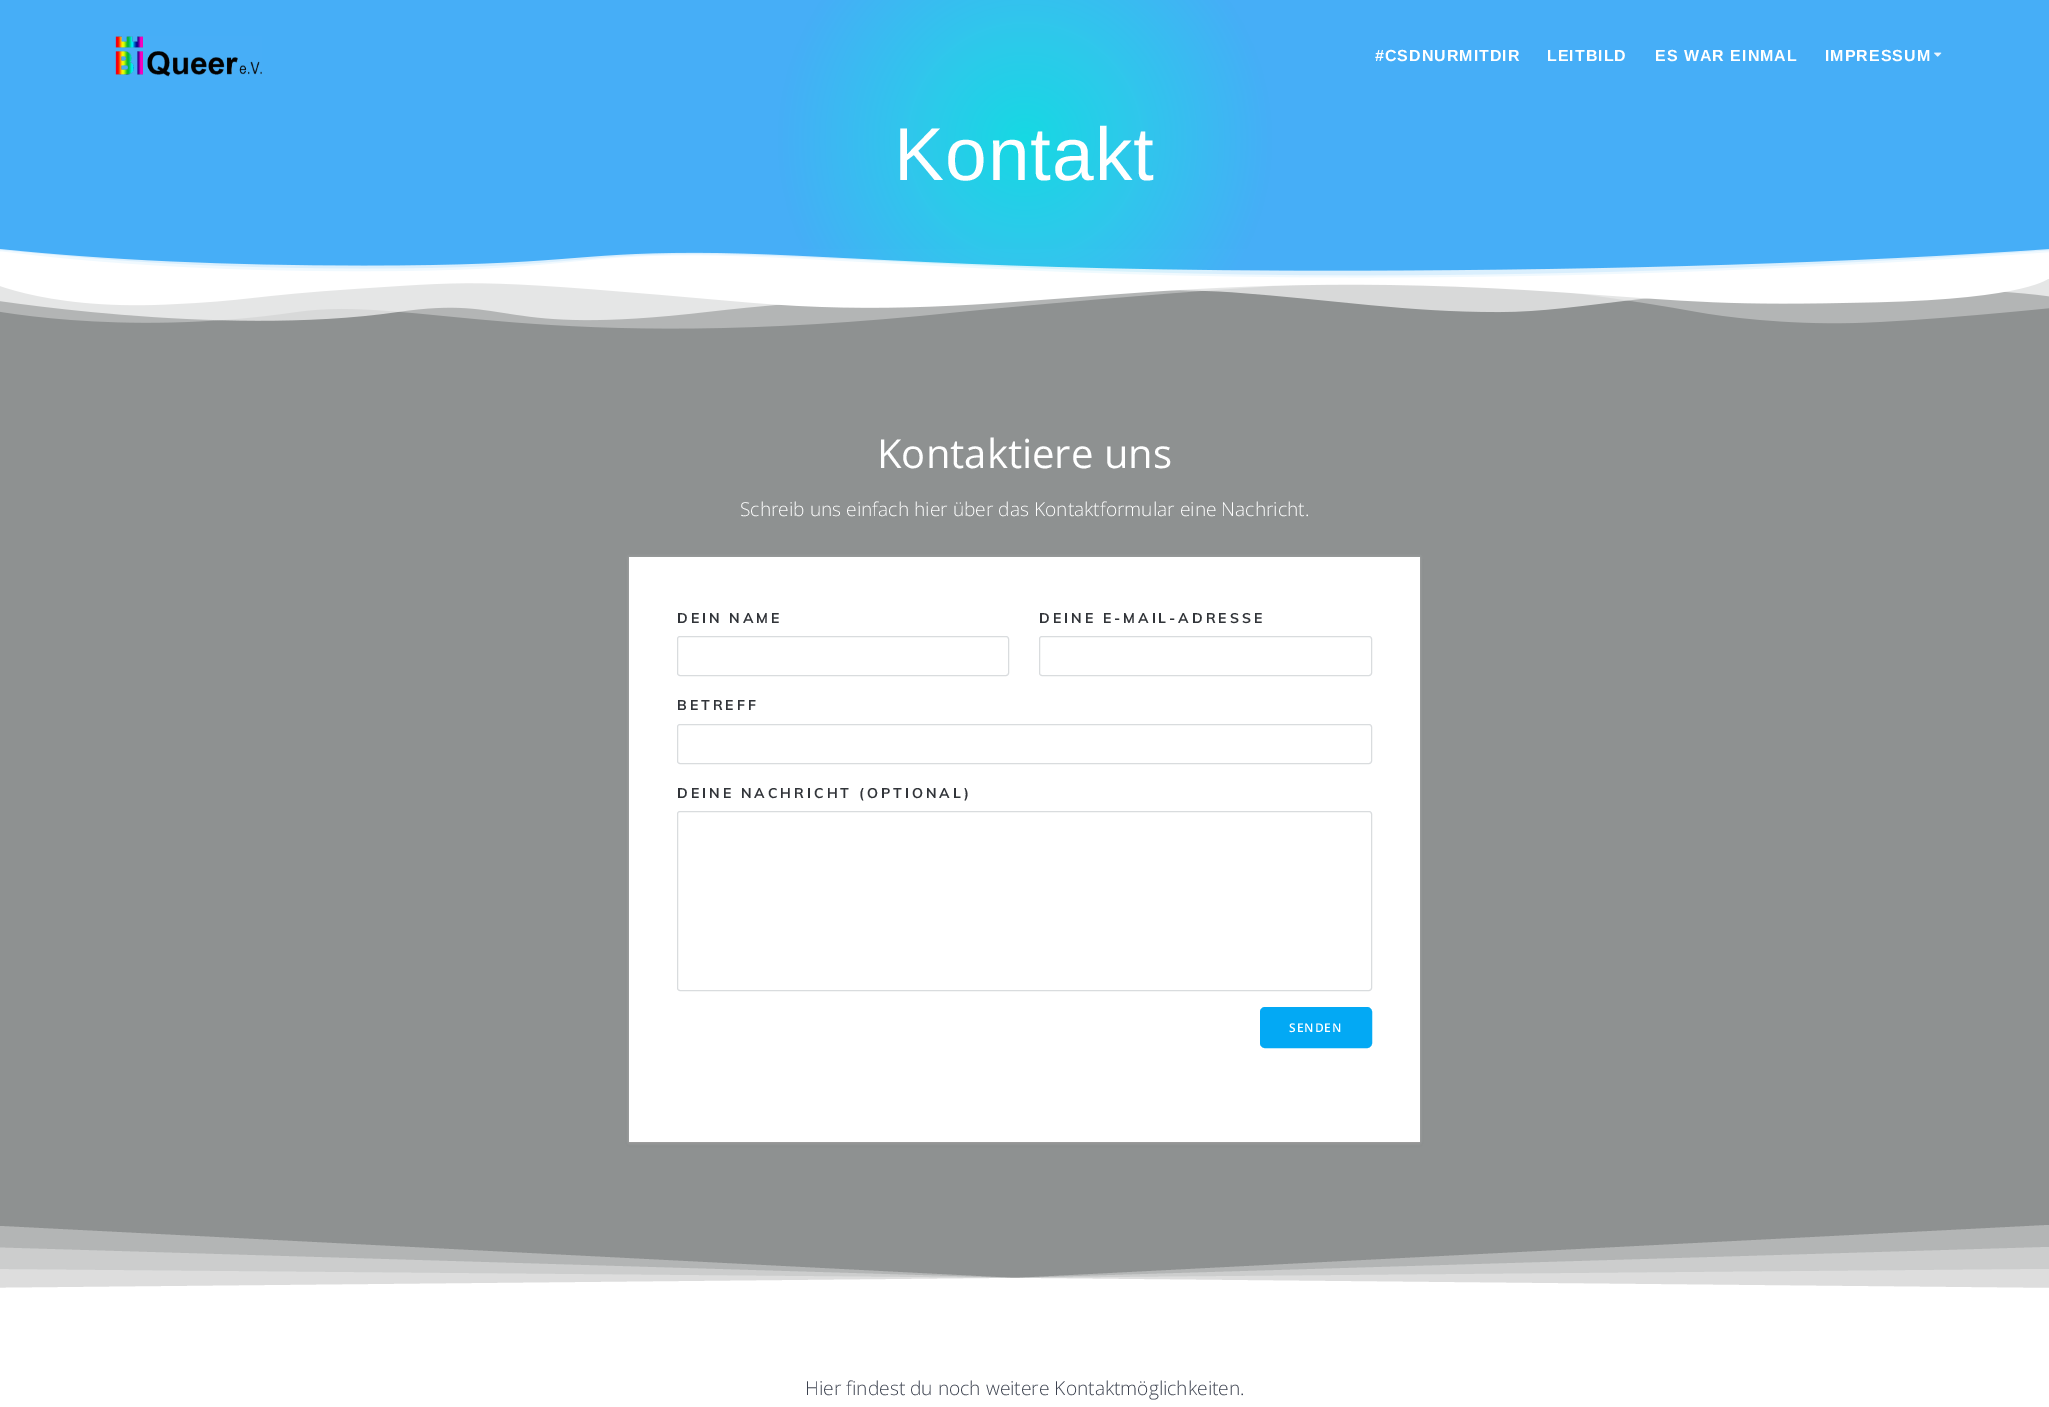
%!PS-Adobe-3.0
%%BoundingBox: 0 0 2049 1407
%%LanguageLevel: 3
%%Pages: 1
%%EndComments
%%BeginProlog
/setink { dup -16 bitshift 255 div exch dup -8 bitshift 255 and 255 div exch 255 and 255 div setrgbcolor } def
/usefont { [ exch dup neg 0 0 3 -1 roll 0 0 ] selectfont } def
/setalpha { dup .setfillconstantalpha .setstrokeconstantalpha } def
/rrect { 5 dict begin { /r /h /w /y /x } { exch def } forall
  x r add y moveto x w add y 2 copy h add r arct x w add y h add x 1 index r arct
  x y h add x y r arct x y 2 copy exch w add exch r arct closepath end } def
/softshadow { 12 dict begin { /a /b /q /h /w /y /x } { exch def } forall gsave /was 0 def
  9 -2 -9 { dup b mul 4 div /e exch def 1 sub .425 mul 2.718 exch exp 1 add a .99 .min exch div /now exch def
    1 1 now sub 1 was sub div sub setalpha /was now def
    w h .min e 2 mul add 0 gt { x e sub y e sub w e 2 mul add h e 2 mul add
      q e add b .6 mul add w h .min 2 div e add .min 0 .max rrect fill } if } for grestore end } def
/drawimage { 5 dict begin { /h /w /y /x /name } { exch def } forall
  gsave x y translate w h scale
  w h 8 [w 0 0 h 0 0] name (r) file false 3 colorimage grestore end } def
%%EndProlog
%%BeginSetup
<< /PageSize [2049 1407] /PageUsesTransparency true >> setpagedevice
%%EndSetup
%%Page: 1 1
0 .pushpdf14devicefilter
0 1407 translate 1 -1 scale
4 setmiterlimit
16#FFFFFF setink
0 0 2049 1407 rectfill
gsave 0 0 moveto 2049 0 lineto 2049 278 lineto 0 278 lineto closepath clip newpath 1025 140 translate 248 248 scale
<< /ShadingType 3 /ColorSpace /DeviceRGB /Coords [0 0 0 0 0 1] /Extend [true true] /Function << /FunctionType 3 /Domain [0 1] /Functions [<< /FunctionType 2 /Domain [0 1] /C0 [0.086 0.851 0.89] /C1 [0.188 0.78 0.925] /N 1 >> << /FunctionType 2 /Domain [0 1] /C0 [0.188 0.78 0.925] /C1 [0.275 0.682 0.969] /N 1 >>] /Bounds [0.47] /Encode [0 1 0 1] >> >> shfill grestore
(img1.raw) 115 36 147 41 drawimage
/LiberationSans-Bold 16 usefont
1375 61 moveto 1 0 (#CSDNURMITDIR) ashow
1547 61 moveto 1 0 (LEITBILD) ashow
1655 61 moveto 1 0 (ES WAR EINMAL) ashow
1825 61 moveto 1 0 (IMPRESSUM) ashow
(img2.raw) 1934 52 8 5 drawimage
/LiberationSans-Regular 75 usefont
894 180 moveto 1 0 (Kontakt) ashow
(img3.raw) 0 249 2049 30 drawimage
16#8E9191 setink
0 279 2049 1009 rectfill
(img4.raw) 0 279 2049 50 drawimage
/OpenSans-Regular 40 usefont
16#FFFFFF setink
877 468 moveto (Kontaktiere uns) show
/OpenSans-Light 19.2 usefont
740 516 moveto (Schreib uns einfach hier über das Kontaktformular eine Nachricht.) show
16#000000 setink
629 559 791 585 0 1.5 0.08 softshadow
16#BDBDBD setink
629 559 791 585 0 1.5 0.3 softshadow
629 557 791 585 0 1.5 0.4 softshadow
16#FFFFFF setink
629 557 791 585 rectfill
/Muli-Bold 14 usefont
16#313439 setink
677 623 moveto 3 0 (DEIN NAME) ashow
16#D9DCDE setink
677.5 636.5 331 39 2.5 rrect stroke
16#313439 setink
1039 623 moveto 3 0 (DEINE E-MAIL-ADRESSE) ashow
16#D9DCDE setink
1039.5 636.5 332 39 2.5 rrect stroke
16#313439 setink
677 710 moveto 3 0 (BETREFF) ashow
16#D9DCDE setink
677.5 724.5 694 39 2.5 rrect stroke
16#313439 setink
677 798 moveto 3 0 (DEINE NACHRICHT \(OPTIONAL\)) ashow
16#D9DCDE setink
677.5 811.5 694 179 2.5 rrect stroke
16#03A9F4 setink
1261 1008 110 39 4 rrect gsave fill grestore
2 setlinewidth
stroke
/OpenSans-SemiBold 12 usefont
16#FFFFFF setink
1289 1032 moveto 1 0 (SENDEN) ashow
0.33 setalpha
-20 1293 moveto -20 1225 lineto 1015 1278 lineto 2049 1225 lineto 2049 1293 lineto closepath fill
-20 1293 moveto -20 1247 lineto 1015 1278 lineto 2049 1247 lineto 2049 1293 lineto closepath fill
-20 1293 moveto -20 1269 lineto 1015 1278 lineto 2049 1269 lineto 2049 1293 lineto closepath fill
1 setalpha
-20 1293 moveto -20 1288 lineto 1015 1278 lineto 2049 1288 lineto 2049 1293 lineto closepath fill
/OpenSans-Light 19.2 usefont
16#3C424F setink
805 1395 moveto (Hier findest du noch weitere Kontaktmöglichkeiten.) show
.poppdf14devicefilter showpage
%%EOF
